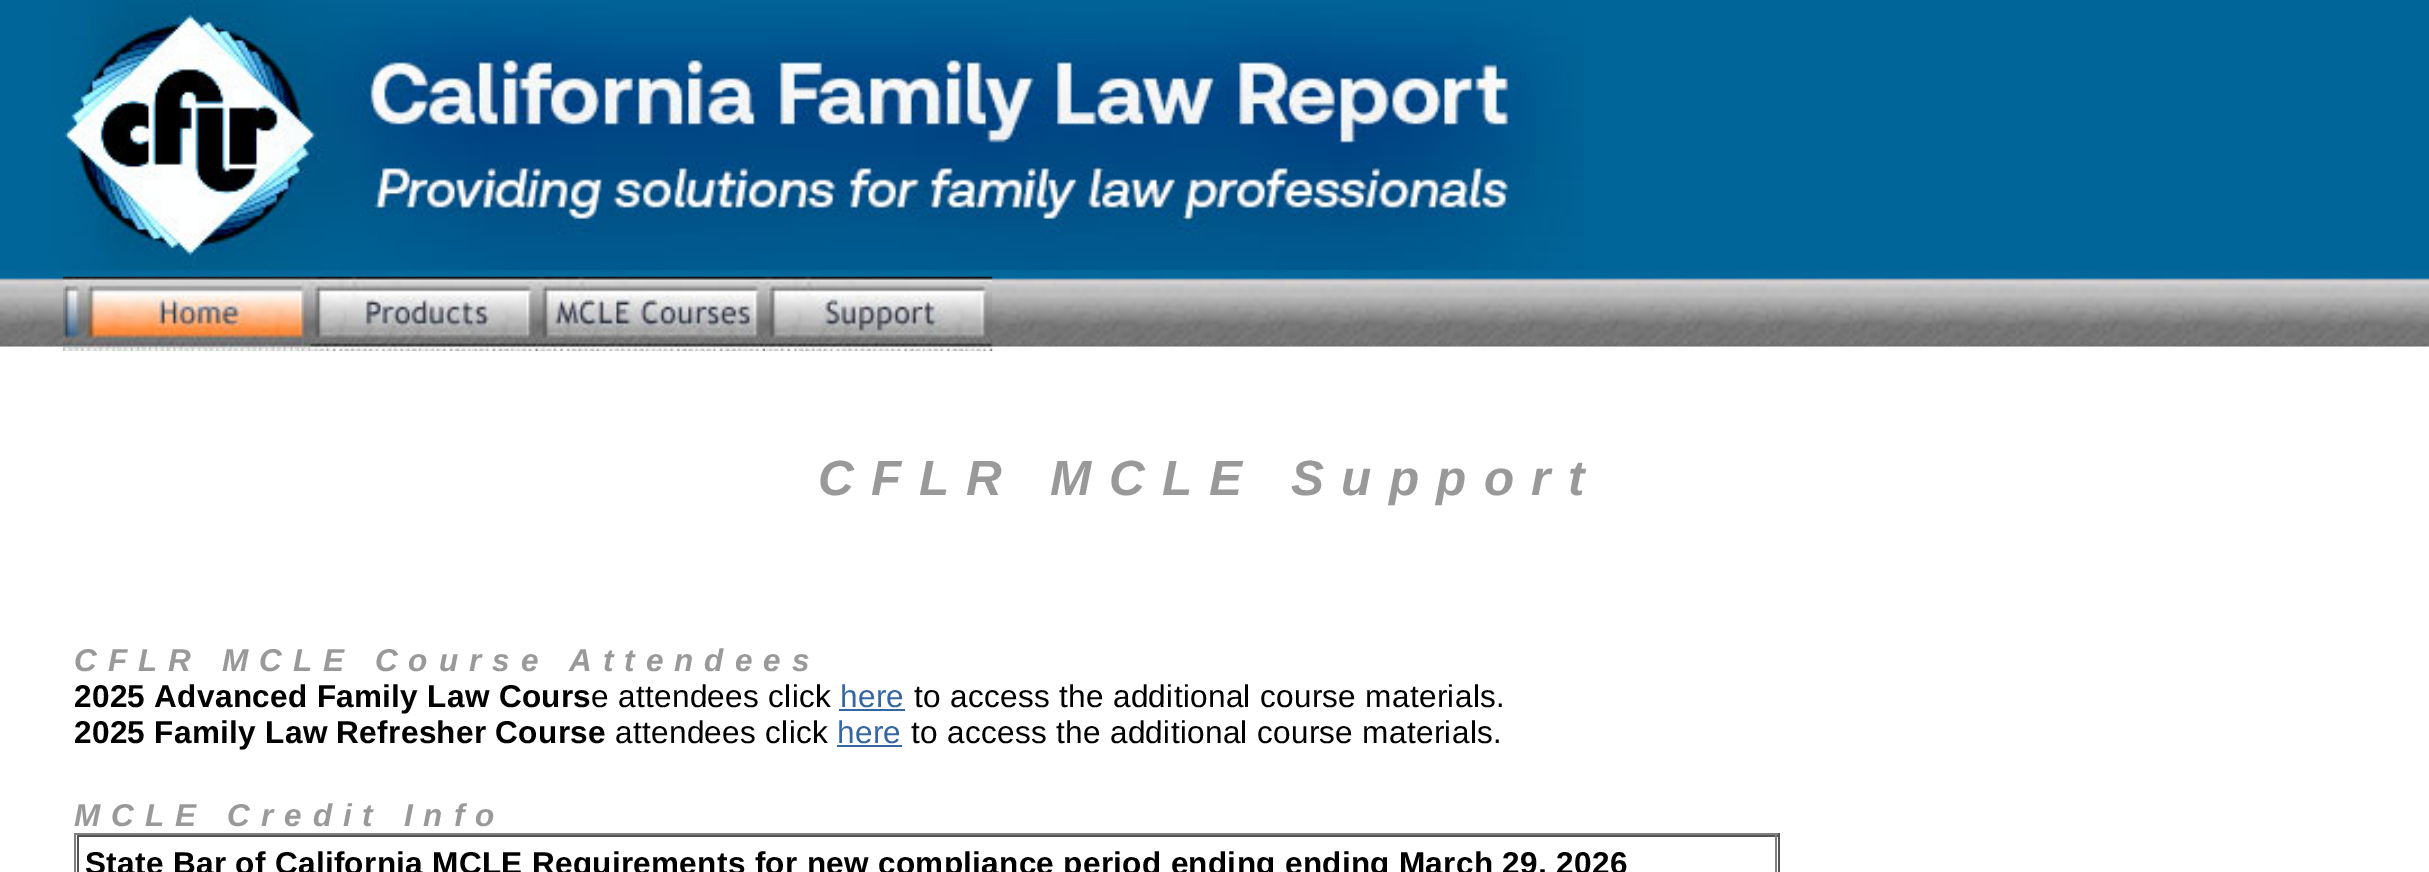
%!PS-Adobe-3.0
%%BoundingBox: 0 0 2429 872
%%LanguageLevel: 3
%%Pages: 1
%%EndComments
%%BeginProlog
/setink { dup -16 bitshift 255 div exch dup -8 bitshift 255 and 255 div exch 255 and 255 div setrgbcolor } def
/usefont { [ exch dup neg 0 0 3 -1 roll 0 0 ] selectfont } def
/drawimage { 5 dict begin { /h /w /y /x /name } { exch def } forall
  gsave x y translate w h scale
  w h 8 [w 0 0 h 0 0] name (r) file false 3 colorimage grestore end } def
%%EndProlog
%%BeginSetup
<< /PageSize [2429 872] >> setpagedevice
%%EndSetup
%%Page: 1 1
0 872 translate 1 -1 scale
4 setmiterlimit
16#FFFFFF setink
0 0 2429 872 rectfill
(img1.raw) 0 0 2429 347 drawimage
(img2.raw) 54 0 1530 270 drawimage
(img3.raw) 63 276 248 75 drawimage
(img4.raw) 310 276 228 75 drawimage
(img5.raw) 537 276 228 75 drawimage
(img6.raw) 765 276 228 75 drawimage
/LiberationSans-BoldItalic 49.5 usefont
16#999999 setink
818 495 moveto 17.3 0 (CFLR MCLE Support) ashow
/LiberationSans-BoldItalic 31.5 usefont
74 671 moveto 11 0 (CFLR MCLE Course Attendees) ashow
/LiberationSans-Bold 31.5 usefont
16#000000 setink
74 707 moveto 0.32 0 (2025 Advanced Family Law Cours) ashow
/LiberationSans-Regular 31.5 usefont
591 707 moveto 0.32 0 (e attendees click) ashow
16#3566A2 setink
840 707 moveto 0.32 0 (here) ashow
839 709 66 2 rectfill
16#000000 setink
914 707 moveto 0.32 0 (to access the additional course materials.) ashow
/LiberationSans-Bold 31.5 usefont
74 743 moveto 0.32 0 (2025 Family Law Refresher Course) ashow
/LiberationSans-Regular 31.5 usefont
615 743 moveto 0.32 0 (attendees click) ashow
16#3566A2 setink
837 743 moveto 0.32 0 (here) ashow
837 745 65 2 rectfill
16#000000 setink
911 743 moveto 0.32 0 (to access the additional course materials.) ashow
/LiberationSans-BoldItalic 31.5 usefont
16#999999 setink
74 826 moveto 11 0 (MCLE Credit Info) ashow
[
    [74 833 1706 2 16#808080]
    [1778 833 2 39 16#555555]
    [74 833 2 39 16#808080]
    [77 835 1701 2 16#555555]
    [1775 835 2 37 16#808080]
    [77 835 2 37 16#555555]
] { aload pop setink rectfill } forall
/LiberationSans-Bold 31.5 usefont
16#000000 setink
85 874 moveto 0.32 0 (State Bar of California MCLE Requirements for new compliance period ending ending March 29, 2026) ashow
showpage
%%EOF
